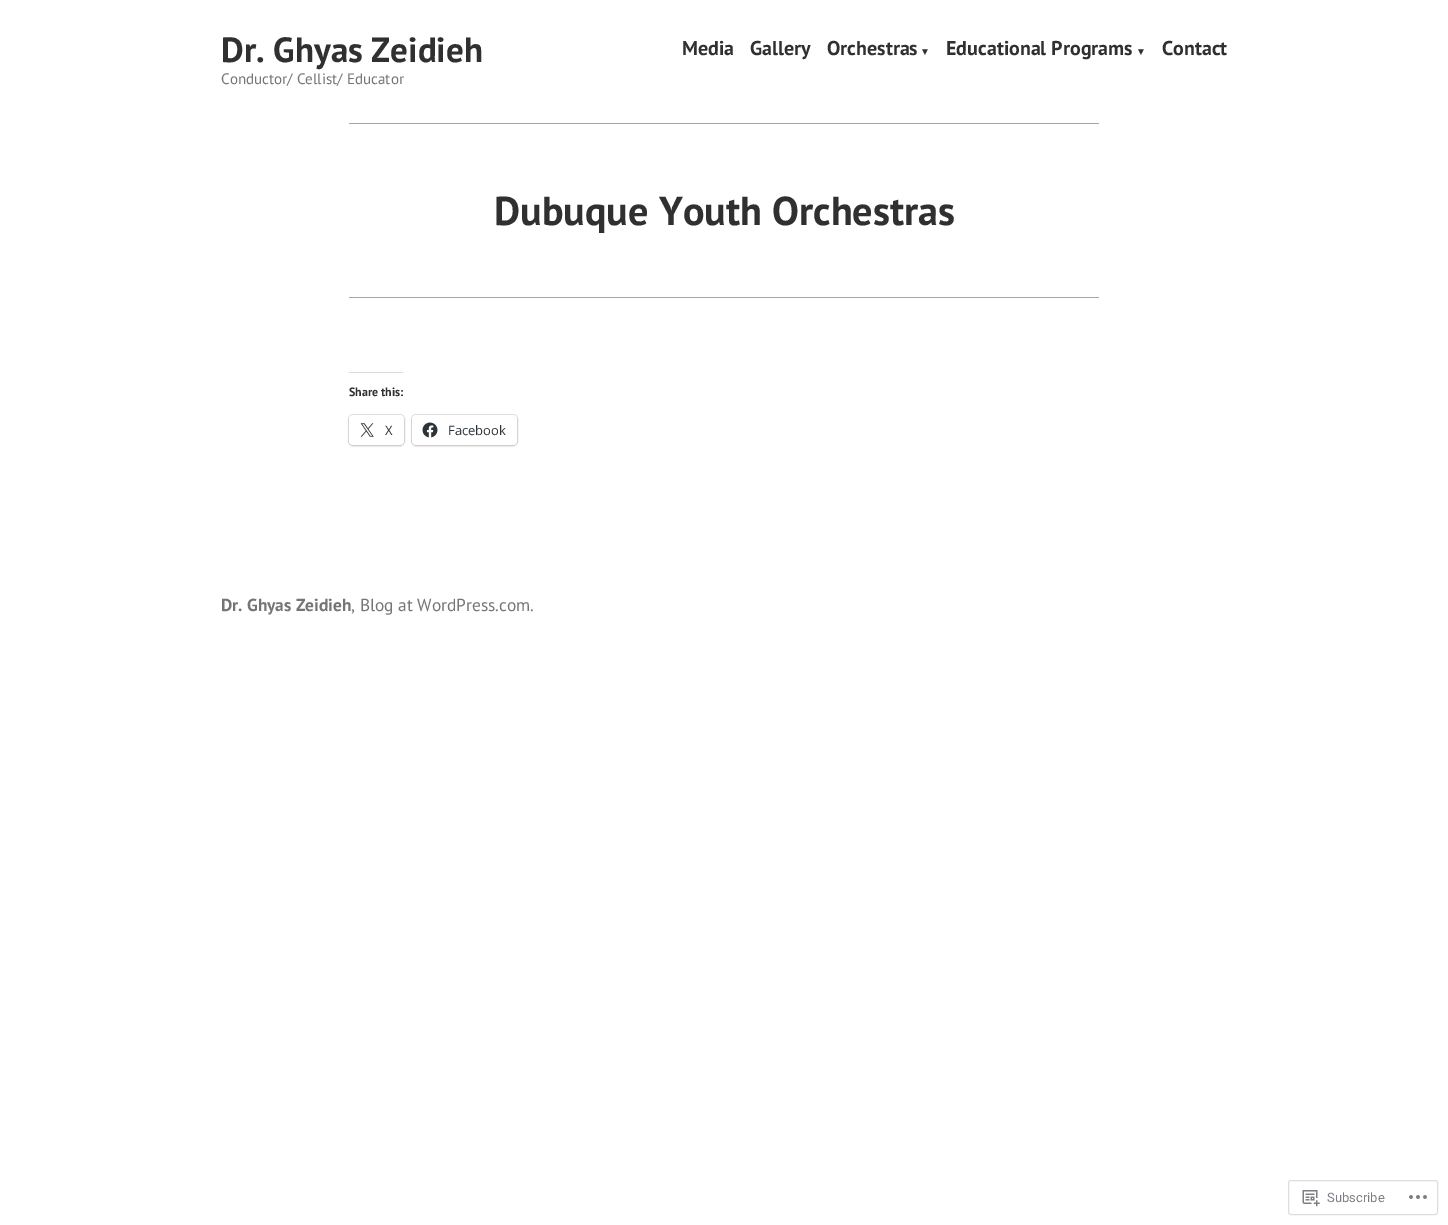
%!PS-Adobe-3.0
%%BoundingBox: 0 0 1448 1225
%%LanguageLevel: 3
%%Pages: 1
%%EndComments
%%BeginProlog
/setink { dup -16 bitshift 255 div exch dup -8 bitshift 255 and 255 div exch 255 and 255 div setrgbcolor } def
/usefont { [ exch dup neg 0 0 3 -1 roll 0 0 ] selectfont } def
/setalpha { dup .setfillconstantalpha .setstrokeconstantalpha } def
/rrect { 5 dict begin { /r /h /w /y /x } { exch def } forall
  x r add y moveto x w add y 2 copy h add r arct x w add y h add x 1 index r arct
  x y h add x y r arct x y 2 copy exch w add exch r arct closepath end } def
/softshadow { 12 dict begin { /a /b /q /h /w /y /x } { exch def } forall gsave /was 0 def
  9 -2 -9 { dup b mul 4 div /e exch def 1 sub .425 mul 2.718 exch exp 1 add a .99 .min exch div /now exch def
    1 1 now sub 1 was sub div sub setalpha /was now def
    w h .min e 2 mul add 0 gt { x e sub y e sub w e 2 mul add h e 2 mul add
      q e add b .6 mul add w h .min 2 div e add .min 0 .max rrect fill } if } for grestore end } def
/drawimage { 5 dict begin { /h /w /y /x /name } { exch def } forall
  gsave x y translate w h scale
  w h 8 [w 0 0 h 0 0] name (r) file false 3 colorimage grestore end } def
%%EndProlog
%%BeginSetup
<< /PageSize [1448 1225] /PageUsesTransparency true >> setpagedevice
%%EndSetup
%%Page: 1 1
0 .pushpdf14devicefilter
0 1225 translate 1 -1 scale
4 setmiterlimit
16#FFFFFF setink
0 0 1448 1225 rectfill
/PTSans-Bold 35 usefont
16#303030 setink
221 62 moveto (Dr. Ghyas Zeidieh) show
/PTSans-Bold 20 usefont
[
    [(Media) 682 55]
    [(Gallery) 750 55]
    [(Orchestras) 827 55]
] { aload pop moveto show } forall
/LiberationSans-Bold 10 usefont
920 55 moveto (▼) show
/PTSans-Bold 20 usefont
946 55 moveto (Educational Programs) show
/LiberationSans-Bold 10 usefont
1136 55 moveto (▼) show
/PTSans-Bold 20 usefont
1162 55 moveto (Contact) show
/PTSans-Regular 15.1 usefont
16#757575 setink
221 84 moveto (Conductor/ Cellist/ Educator) show
16#A5A5A5 setink
349 123 750 1 rectfill
/PTSans-Bold 40.25 usefont
16#303030 setink
494 225 moveto (Dubuque Youth Orchestras) show
16#A5A5A5 setink
349 297 750 1 rectfill
16#DCDCDE setink
349 372 54 1 rectfill
/PTSans-Bold 12 usefont
16#303030 setink
349 396 moveto (Share this:) show
16#E0E0E0 setink
348.5 414.5 56 31 4.5 rrect stroke
16#000000 setink
349 416 55 30 4 1 0.12 softshadow
16#FFFFFF setink
349 415 55 30 4 rrect fill
(img1.raw) 360 423 14 14 drawimage
/OpenSans-Regular 13 usefont
16#2C3338 setink
385 435 moveto (X) show
16#E0E0E0 setink
411.5 414.5 106 31 4.5 rrect stroke
16#000000 setink
412 416 105 30 4 1 0.12 softshadow
16#FFFFFF setink
412 415 105 30 4 rrect fill
(img2.raw) 422 422 16 16 drawimage
16#2C3338 setink
448 435 moveto (Facebook) show
/PTSans-Bold 17.4 usefont
16#757575 setink
221 611 moveto (Dr. Ghyas Zeidieh) show
/PTSans-Regular 17.4 usefont
351 611 moveto (, Blog at WordPress.com.) show
16#DDDDDF setink
1288.5 1180.5 149 34 2.5 rrect stroke
(img3.raw) 1302 1190 18 17 drawimage
/Roboto-Regular 13 usefont
16#7B7F85 setink
1327 1202 moveto (Subscribe) show
(img4.raw) 1409 1195 18 4 drawimage
.poppdf14devicefilter showpage
%%EOF
